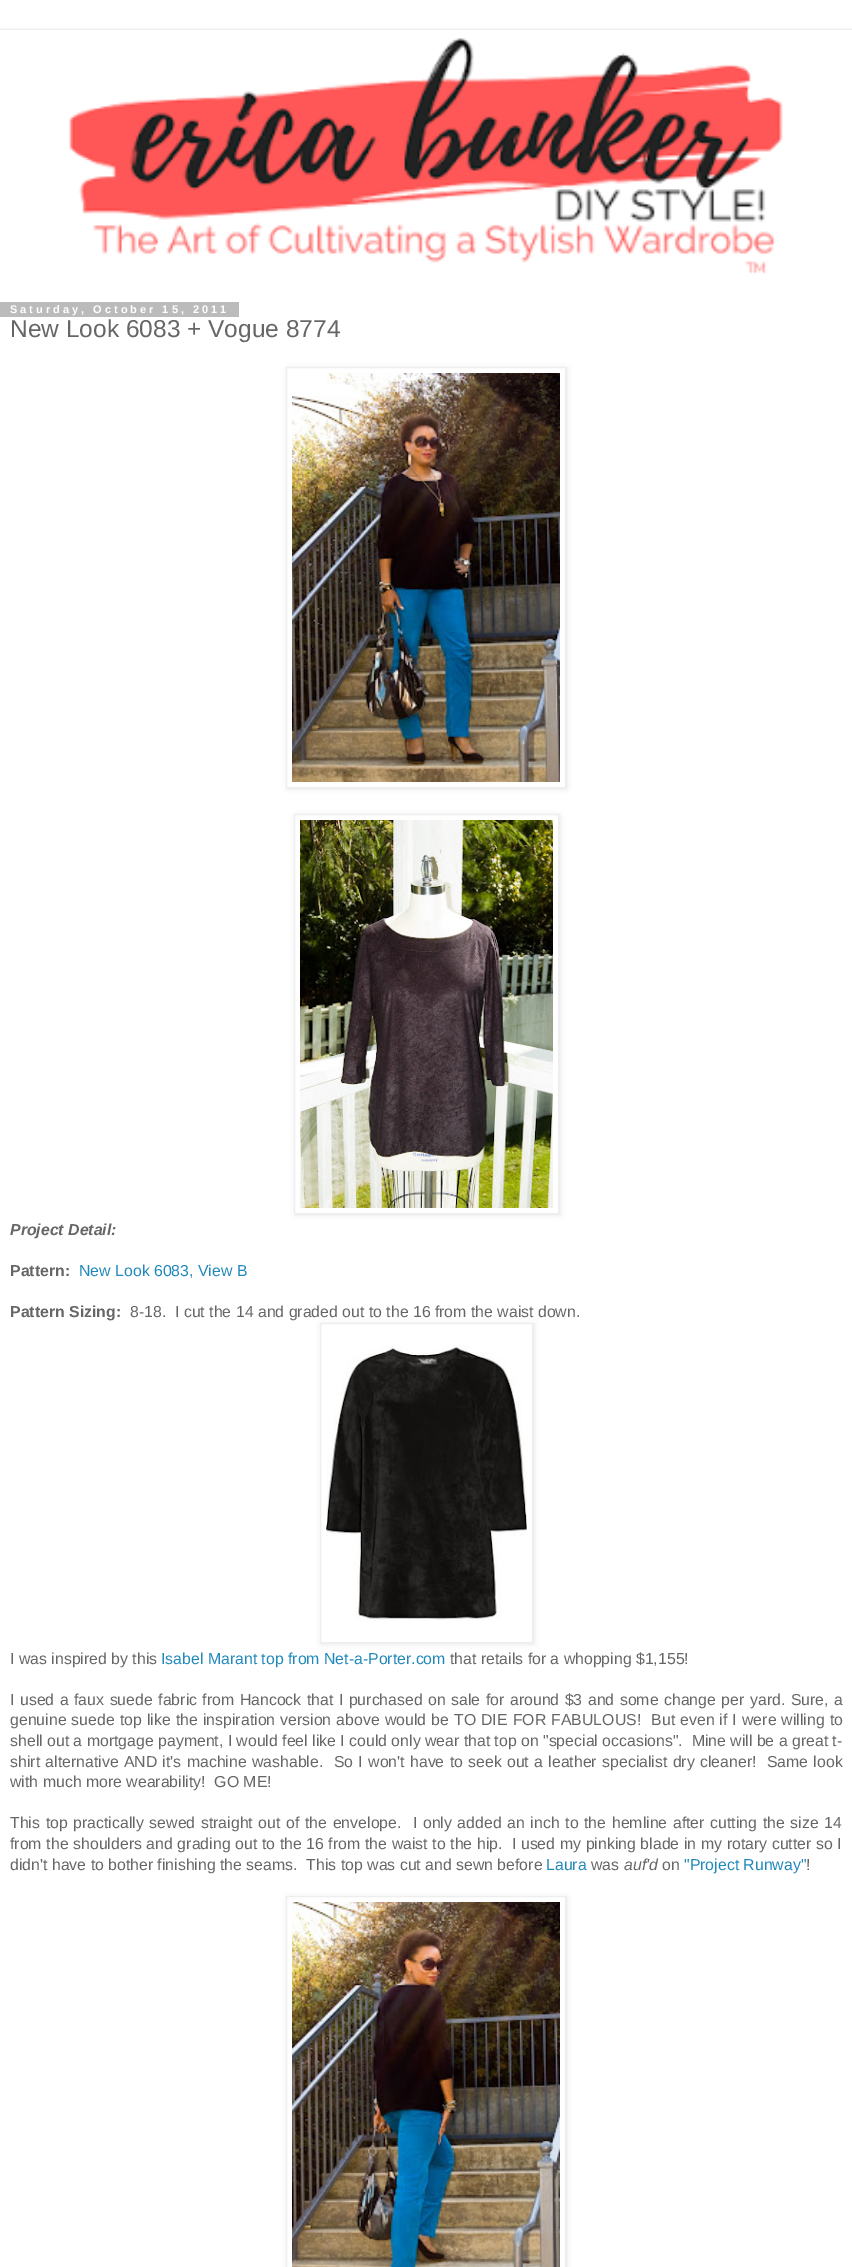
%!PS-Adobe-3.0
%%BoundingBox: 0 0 852 2267
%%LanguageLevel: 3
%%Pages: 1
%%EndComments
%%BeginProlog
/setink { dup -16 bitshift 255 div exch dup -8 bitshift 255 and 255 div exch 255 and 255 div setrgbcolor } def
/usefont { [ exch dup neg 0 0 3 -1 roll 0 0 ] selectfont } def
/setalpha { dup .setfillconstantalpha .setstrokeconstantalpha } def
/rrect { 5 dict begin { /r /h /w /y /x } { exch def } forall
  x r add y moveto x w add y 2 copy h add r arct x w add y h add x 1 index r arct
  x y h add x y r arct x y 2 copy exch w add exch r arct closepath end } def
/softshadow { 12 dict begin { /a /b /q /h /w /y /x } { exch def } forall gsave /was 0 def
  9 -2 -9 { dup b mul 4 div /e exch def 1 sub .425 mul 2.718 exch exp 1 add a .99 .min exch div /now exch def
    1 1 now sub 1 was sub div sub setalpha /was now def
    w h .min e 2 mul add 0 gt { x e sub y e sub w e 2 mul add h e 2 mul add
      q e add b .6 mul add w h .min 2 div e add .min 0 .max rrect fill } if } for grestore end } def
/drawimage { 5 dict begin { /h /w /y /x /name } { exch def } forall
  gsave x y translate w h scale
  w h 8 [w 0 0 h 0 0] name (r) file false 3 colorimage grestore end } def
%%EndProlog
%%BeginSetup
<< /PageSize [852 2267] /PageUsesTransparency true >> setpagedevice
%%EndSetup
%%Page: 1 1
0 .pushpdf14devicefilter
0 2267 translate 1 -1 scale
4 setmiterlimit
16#FFFFFF setink
0 0 852 2267 rectfill
gsave
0 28 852 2 rectclip
16#000000 setink
0 30 852 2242 0 1.5 0.15 softshadow
grestore
(img1.raw) 68 38 715 237 drawimage
16#BBBBBB setink
0 302 239 15 rectfill
/LiberationSans-Bold 11 usefont
16#FFFFFF setink
10 313 moveto 3 0 (Saturday, October 15, 2011) ashow
/LiberationSans-Regular 24.5 usefont
16#666666 setink
10 337 moveto (New Look 6083 + Vogue 8774) show
gsave
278 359 moveto 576 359 lineto 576 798 lineto 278 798 lineto closepath 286 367 moveto 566 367 lineto 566 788 lineto 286 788 lineto closepath eoclip newpath
16#000000 setink
287 368 280 421 0 2.5 0.1 softshadow
grestore
16#EEEEEE setink
286.5 367.5 279 420 rectstroke
(img2.raw) 292 373 268 409 drawimage
gsave
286 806 moveto 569 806 lineto 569 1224 lineto 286 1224 lineto closepath 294 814 moveto 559 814 lineto 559 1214 lineto 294 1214 lineto closepath eoclip newpath
16#000000 setink
295 815 265 400 0 2.5 0.1 softshadow
grestore
294.5 814.5 264 399 rectstroke
(img3.raw) 300 820 253 388 drawimage
/LiberationSans-BoldItalic 15.85 usefont
16#666666 setink
10 1235 moveto (Project Detail:) show
/LiberationSans-Bold 15.85 usefont
10 1276 moveto (Pattern:) show
/LiberationSans-Regular 15.85 usefont
16#2288BB setink
79 1276 moveto (New Look 6083, View B) show
/LiberationSans-Bold 15.85 usefont
16#666666 setink
10 1317 moveto (Pattern Sizing:) show
/LiberationSans-Regular 15.85 usefont
130 1317 moveto (8-18.  I cut the 14 and graded out to the 16 from the waist down.) show
gsave
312 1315 moveto 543 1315 lineto 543 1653 lineto 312 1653 lineto closepath 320 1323 moveto 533 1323 lineto 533 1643 lineto 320 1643 lineto closepath eoclip newpath
16#000000 setink
321 1324 213 320 0 2.5 0.1 softshadow
grestore
16#EEEEEE setink
320.5 1323.5 212 319 rectstroke
(img4.raw) 326 1345 201 276 drawimage
16#666666 setink
10 1664 moveto (I was inspired by this) show
16#2288BB setink
161 1664 moveto (Isabel Marant top from Net-a-Porter.com) show
16#666666 setink
450 1664 moveto (that retails for a whopping $1,155!) show
10 1705 moveto 1.1 0 32 (I used a faux suede fabric from Hancock that I purchased on sale for around $3 and some change per yard. Sure, a) widthshow
10 1725 moveto 0.7 0 32 (genuine suede top like the inspiration version above would be TO DIE FOR FABULOUS!  But even if I were willing to) widthshow
10 1746 moveto (shell out a mortgage payment, I would feel like I could only wear that top on "special occasions".  Mine will be a great t-) show
10 1767 moveto 0.9 0 32 (shirt alternative AND it's machine washable.  So I won't have to seek out a leather specialist dry cleaner!  Same look) widthshow
10 1787 moveto (with much more wearability!  GO ME!) show
10 1828 moveto 1.25 0 32 (This top practically sewed straight out of the envelope.  I only added an inch to the hemline after cutting the size 14) widthshow
10 1849 moveto 0.25 0 32 (from the shoulders and grading out to the 16 from the waist to the hip.  I used my pinking blade in my rotary cutter so I) widthshow
10 1870 moveto (didn't have to bother finishing the seams.  This top was cut and sewn before) show
16#2288BB setink
546 1870 moveto (Laura) show
16#666666 setink
591 1870 moveto (was) show
/LiberationSans-Italic 15.85 usefont
624 1870 moveto (auf'd) show
/LiberationSans-Regular 15.85 usefont
662 1870 moveto (on) show
16#2288BB setink
684 1870 moveto ("Project Runway") show
16#666666 setink
806 1870 moveto (!) show
gsave
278 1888 moveto 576 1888 lineto 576 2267 lineto 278 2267 lineto closepath 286 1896 moveto 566 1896 lineto 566 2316 lineto 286 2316 lineto closepath eoclip newpath
16#000000 setink
287 1897 280 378 0 2.5 0.1 softshadow
grestore
16#EEEEEE setink
286.5 1896.5 279 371 rectstroke
(img5.raw) 292 1902 268 365 drawimage
.poppdf14devicefilter showpage
%%EOF
